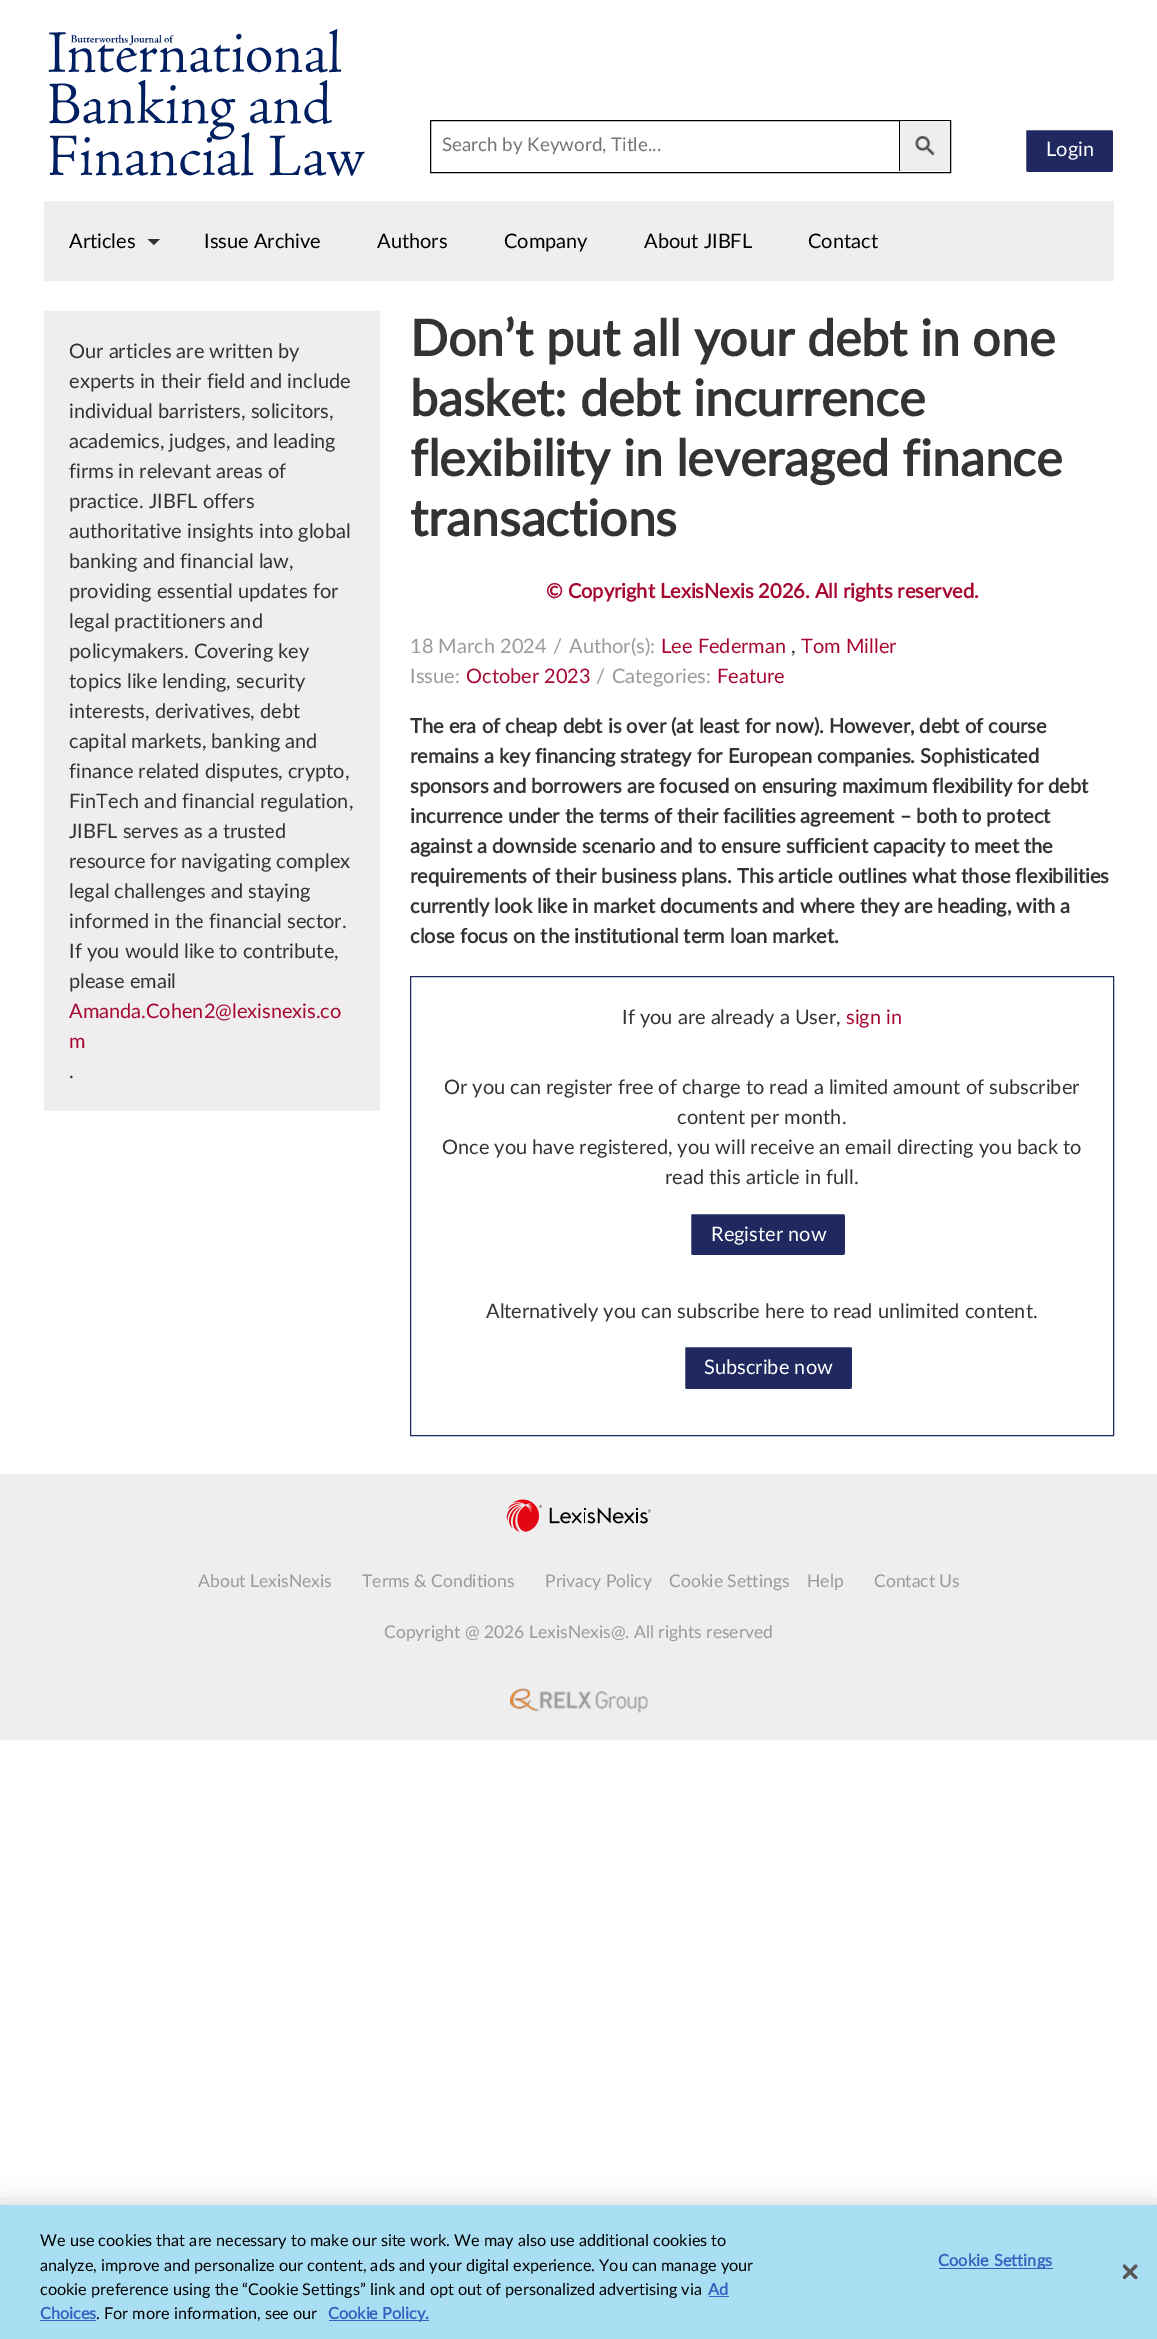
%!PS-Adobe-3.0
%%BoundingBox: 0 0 1157 2339
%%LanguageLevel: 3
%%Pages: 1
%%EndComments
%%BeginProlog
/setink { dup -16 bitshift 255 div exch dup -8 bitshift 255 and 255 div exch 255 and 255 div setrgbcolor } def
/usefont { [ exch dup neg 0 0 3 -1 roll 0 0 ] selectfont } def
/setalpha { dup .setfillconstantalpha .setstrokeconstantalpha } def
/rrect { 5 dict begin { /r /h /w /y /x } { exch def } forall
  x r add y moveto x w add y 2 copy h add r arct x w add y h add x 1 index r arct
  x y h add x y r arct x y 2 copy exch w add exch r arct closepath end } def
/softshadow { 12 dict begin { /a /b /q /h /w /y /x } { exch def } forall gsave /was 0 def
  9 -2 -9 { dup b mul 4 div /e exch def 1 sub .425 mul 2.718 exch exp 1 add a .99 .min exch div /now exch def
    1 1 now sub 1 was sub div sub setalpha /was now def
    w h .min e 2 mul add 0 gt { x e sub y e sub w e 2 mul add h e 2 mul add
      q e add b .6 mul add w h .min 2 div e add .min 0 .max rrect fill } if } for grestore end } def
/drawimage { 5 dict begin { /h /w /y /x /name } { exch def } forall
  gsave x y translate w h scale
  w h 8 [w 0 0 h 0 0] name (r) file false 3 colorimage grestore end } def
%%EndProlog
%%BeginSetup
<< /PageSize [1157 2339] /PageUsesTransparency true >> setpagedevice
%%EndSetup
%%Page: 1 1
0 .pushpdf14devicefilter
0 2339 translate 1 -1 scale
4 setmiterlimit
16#FFFFFF setink
0 0 1157 2339 rectfill
(img1.raw) 48 29 317 147 drawimage
16#000000 setink
430.5 120.5 520 52 rectstroke
899 121 1 50 rectfill
16#EFEEEE setink
900 121 50 50 rectfill
/Lato-Regular 18.75 usefont
16#757575 setink
442 151 moveto (Search by Keyword, Title...) show
(img2.raw) 915 136 20 20 drawimage
16#1F295F setink
1025.5 129.5 88 43 2 rrect gsave fill grestore
16#FFFFFF setink
stroke
/Lato-Regular 20 usefont
1046 156 moveto (Login) show
16#EFEEEE setink
44 201 1070 80 rectfill
16#000000 setink
69 248 moveto (Articles) show
16#333333 setink
147.5 239 moveto 160 239 lineto 154 245 lineto closepath fill
16#000000 setink
[
    [(Issue Archive) 204 248]
    [(Authors) 377 248]
    [(Company) 504 248]
    [(About JIBFL) 644 248]
    [(Contact) 808 248]
] { aload pop moveto show } forall
16#EFEDEE setink
44 311 336 800 rectfill
16#333333 setink
[
    [(Our articles are written by) 69 358]
    [(experts in their field and include) 69 388]
    [(individual barristers, solicitors,) 69 418]
    [(academics, judges, and leading) 69 448]
    [(firms in relevant areas of) 69 478]
    [(practice. JIBFL offers) 69 508]
    [(authoritative insights into global) 69 538]
    [(banking and financial law,) 69 568]
    [(providing essential updates for) 69 598]
    [(legal practitioners and) 69 628]
    [(policymakers. Covering key) 69 658]
    [(topics like lending, security) 69 688]
    [(interests, derivatives, debt) 69 718]
    [(capital markets, banking and) 69 748]
    [(finance related disputes, crypto,) 69 778]
    [(FinTech and financial regulation,) 69 808]
    [(JIBFL serves as a trusted) 69 838]
    [(resource for navigating complex) 69 868]
    [(legal challenges and staying) 69 898]
    [(informed in the financial sector.) 69 928]
    [(If you would like to contribute,) 69 958]
    [(please email) 69 988]
] { aload pop moveto show } forall
16#A60832 setink
69 1018 moveto (Amanda.Cohen2@lexisnexis.co) show
69 1048 moveto (m) show
16#333333 setink
69 1078 moveto (.) show
/Lato-Bold 50 usefont
[
    [(Don’t put all your debt in one) 410 356]
    [(basket: debt incurrence) 410 416]
    [(flexibility in leveraged finance) 410 476]
    [(transactions) 410 536]
] { aload pop moveto show } forall
/Lato-Bold 20 usefont
16#A60832 setink
546 598 moveto (© Copyright LexisNexis 2026. All rights reserved.) show
/Lato-Regular 20 usefont
16#989A9D setink
[
    [(18 March 2024) 410 653]
    [(/) 553 653]
    [(Author\(s\):) 569 653]
] { aload pop moveto show } forall
16#A60832 setink
661 653 moveto (Lee Federman) show
16#333333 setink
791 653 moveto (,) show
16#A60832 setink
801 653 moveto (Tom Miller) show
16#989A9D setink
410 683 moveto (Issue:) show
16#A60832 setink
466 683 moveto (October 2023) show
16#989A9D setink
596 683 moveto (/) show
612 683 moveto (Categories:) show
16#A60832 setink
717 683 moveto (Feature) show
/Lato-Bold 20 usefont
16#333333 setink
[
    [(The era of cheap debt is over \(at least for now\). However, debt of course) 410 733]
    [(remains a key financing strategy for European companies. Sophisticated) 410 763]
    [(sponsors and borrowers are focused on ensuring maximum flexibility for debt) 410 793]
    [(incurrence under the terms of their facilities agreement – both to protect) 410 823]
    [(against a downside scenario and to ensure sufficient capacity to meet the) 410 853]
    [(requirements of their business plans. This article outlines what those flexibilities) 410 883]
    [(currently look like in market documents and where they are heading, with a) 410 913]
    [(close focus on the institutional term loan market.) 410 943]
] { aload pop moveto show } forall
16#1F295F setink
410.5 976.5 703 459 rectstroke
/Lato-Regular 20 usefont
16#333333 setink
622 1024 moveto (If you are already a User,) show
16#A60832 setink
846 1024 moveto (sign in) show
16#333333 setink
[
    [(Or you can register free of charge to read a limited amount of subscriber) 444 1094]
    [(content per month.) 677 1124]
    [(Once you have registered, you will receive an email directing you back to) 442 1154]
    [(read this article in full.) 665 1184]
] { aload pop moveto show } forall
16#1F295F setink
690.5 1213.5 155 42 2 rrect gsave fill grestore
16#FFFFFF setink
stroke
711 1241 moveto (Register now) show
16#333333 setink
486 1318 moveto (Alternatively you can subscribe here to read unlimited content.) show
16#1F295F setink
684.5 1346.5 168 43 2 rrect gsave fill grestore
16#FFFFFF setink
stroke
704 1374 moveto (Subscribe now) show
16#EFEEEE setink
0 1474 1157 266 rectfill
(img3.raw) 506 1499 145 33 drawimage
/Lato-Regular 17.5 usefont
16#989A9D setink
[
    [(About LexisNexis) 198 1587]
    [(Terms & Conditions) 362 1587]
    [(Privacy Policy) 545 1587]
    [(Cookie Settings) 669 1587]
    [(Help) 807 1587]
    [(Contact Us) 874 1587]
    [(Copyright @ 2026 LexisNexis@. All rights reserved) 384 1638]
] { aload pop moveto show } forall
(img4.raw) 510 1688 138 25 drawimage
16#000000 setink
0 2205 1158 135 0 11 0.2 softshadow
16#AADEF3 setink
0 2205 1157 134 rectfill
/Lato-Regular 16.25 usefont
16#000000 setink
[
    [(We use cookies that are necessary to make our site work. We may also use additional cookies to) 40 2246]
    [(analyze, improve and personalize our content, ads and your digital experience. You can manage your) 40 2271]
    [(cookie preference using the “Cookie Settings” link and opt out of personalized advertising via) 40 2295]
] { aload pop moveto show } forall
/Lato-Bold 16.25 usefont
16#3860BE setink
708 2295 moveto (Ad) show
709 2296 20 1 rectfill
40 2319 moveto (Choices) show
40 2320 56 1 rectfill
/Lato-Regular 16.25 usefont
16#000000 setink
96 2319 moveto (. For more information, see our) show
16#3860BE setink
329 2320 100 1 rectfill
/Lato-Bold 16.25 usefont
328 2319 moveto (Cookie Policy.) show
939 2268 114 1 rectfill
938 2266 moveto 0.2 0 (Cookie Settings) ashow
(img5.raw) 1123 2264 15 15 drawimage
.poppdf14devicefilter showpage
%%EOF
